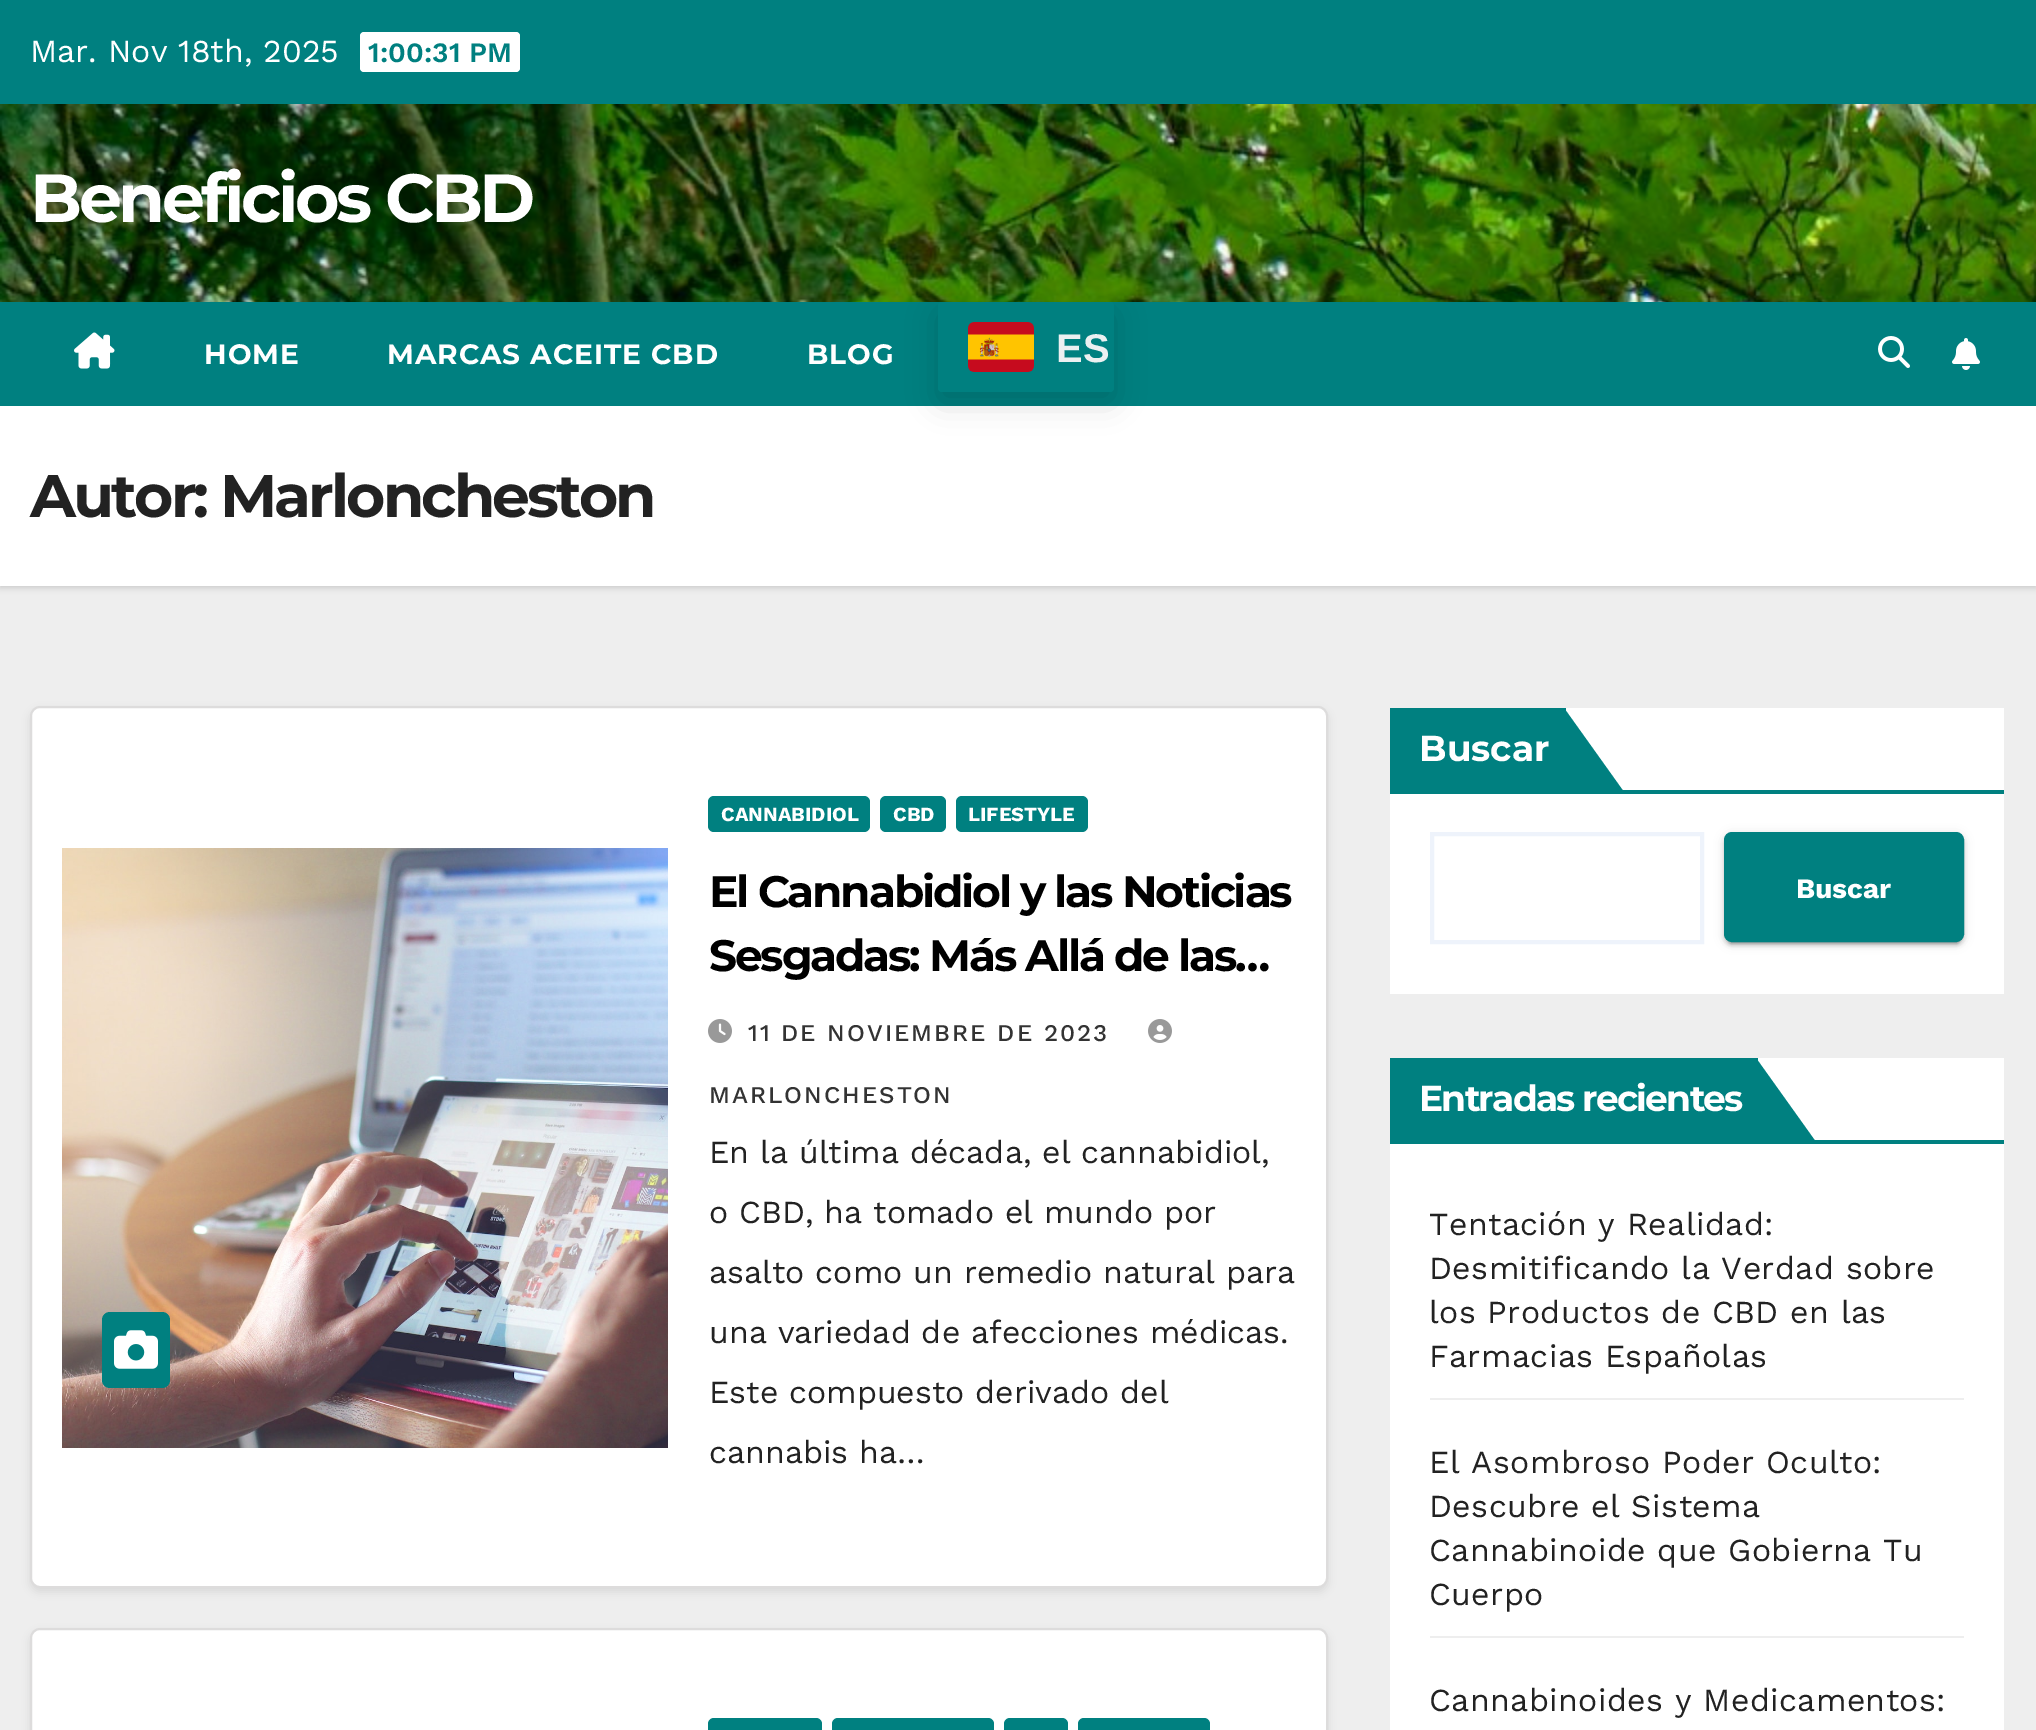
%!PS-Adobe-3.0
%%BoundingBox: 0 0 2036 1730
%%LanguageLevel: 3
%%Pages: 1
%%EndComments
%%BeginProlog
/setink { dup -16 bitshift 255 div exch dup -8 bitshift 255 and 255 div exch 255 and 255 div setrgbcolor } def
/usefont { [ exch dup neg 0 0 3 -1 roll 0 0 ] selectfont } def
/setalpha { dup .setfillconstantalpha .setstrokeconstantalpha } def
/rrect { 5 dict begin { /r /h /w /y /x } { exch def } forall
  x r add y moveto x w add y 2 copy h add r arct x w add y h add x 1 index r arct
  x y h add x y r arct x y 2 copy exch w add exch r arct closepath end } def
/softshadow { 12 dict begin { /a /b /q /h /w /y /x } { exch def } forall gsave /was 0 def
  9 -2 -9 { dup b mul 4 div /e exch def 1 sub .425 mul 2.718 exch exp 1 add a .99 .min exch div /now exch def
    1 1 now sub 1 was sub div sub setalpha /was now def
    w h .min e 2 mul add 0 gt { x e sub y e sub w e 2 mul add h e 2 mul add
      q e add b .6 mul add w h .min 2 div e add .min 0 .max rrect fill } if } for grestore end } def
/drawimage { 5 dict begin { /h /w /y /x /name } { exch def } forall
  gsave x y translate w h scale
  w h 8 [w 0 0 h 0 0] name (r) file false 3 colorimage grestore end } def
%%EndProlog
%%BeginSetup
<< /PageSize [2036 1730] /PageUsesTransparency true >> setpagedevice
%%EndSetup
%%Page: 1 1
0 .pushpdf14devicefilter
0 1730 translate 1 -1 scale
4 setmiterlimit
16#EEEEEE setink
0 0 2036 1730 rectfill
16#008080 setink
0 0 2036 104 rectfill
/WorkSans-Regular 32 usefont
16#FFFFFF setink
30 62 moveto (Mar. Nov 18th, 2025) show
360 32 160 40 4 rrect fill
/WorkSans-SemiBold 28 usefont
16#008080 setink
368 62 moveto (1:00:31 PM) show
(img1.raw) 0 104 2036 198 drawimage
/Montserrat-Bold 68 usefont
16#FFFFFF setink
30 222 moveto -3.4 0 (Beneficios CBD) ashow
16#000000 setink
0 408 2036 180 0 3 0.15 softshadow
16#008080 setink
0 302 2036 104 rectfill
(img2.raw) 74 332 41 37 drawimage
/Montserrat-Bold 28 usefont
16#FFFFFF setink
204 364 moveto 1 0 (HOME) ashow
387 364 moveto 1 0 (MARCAS ACEITE CBD) ashow
807 364 moveto 1 0 (BLOG) ashow
0 406 2036 180 rectfill
16#000000 setink
938 312 176 90 4 15 0.15 softshadow
16#008080 setink
938 302 176 90 4 rrect fill
(img3.raw) 968 322 66 50 drawimage
/LiberationSans-Bold 40 usefont
16#ECF0F1 setink
1056 362 moveto (ES) show
(img4.raw) 1878 336 32 32 drawimage
(img5.raw) 1952 338 28 32 drawimage
/Montserrat-Bold 60 usefont
16#222222 setink
30 517 moveto -3 0 (Autor: Marloncheston) ashow
16#000000 setink
30 710 1298 882 10 4 0.08 softshadow
16#FFFFFF setink
31 707 1296 880 9 rrect gsave fill grestore
16#DDDCDC setink
2 setlinewidth
stroke
(img6.raw) 62 848 606 600 drawimage
16#008080 setink
102 1312 68 76 8 rrect fill
(img7.raw) 114 1330 44 39 drawimage
708 796 162 36 6 rrect fill
/WorkSans-Bold 20 usefont
16#FFFFFF setink
721 821 moveto (CANNABIDIOL) show
16#008080 setink
880 796 66 36 6 rrect fill
16#FFFFFF setink
893 821 moveto (CBD) show
16#008080 setink
956 796 132 36 6 rrect fill
16#FFFFFF setink
968 821 moveto (LIFESTYLE) show
/Montserrat-Bold 44 usefont
16#000000 setink
709 907 moveto -2.2 0 (El Cannabidiol y las Noticias) ashow
709 971 moveto -2.2 0 (Sesgadas: Más Allá de las…) ashow
(img8.raw) 708 1019 24 24 drawimage
/WorkSans-Medium 24 usefont
16#333333 setink
748 1041 moveto 2 0 (11 DE NOVIEMBRE DE 2023) ashow
(img9.raw) 1148 1019 24 24 drawimage
709 1103 moveto 2 0 (MARLONCHESTON) ashow
/WorkSans-Regular 32 usefont
16#222222 setink
[
    [(En la última década, el cannabidiol,) 709 1163]
    [(o CBD, ha tomado el mundo por) 709 1223]
    [(asalto como un remedio natural para) 709 1283]
    [(una variedad de afecciones médicas.) 709 1343]
    [(Este compuesto derivado del) 709 1403]
    [(cannabis ha…) 709 1463]
] { aload pop moveto show } forall
16#000000 setink
30 1632 1298 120 10 4 0.08 softshadow
16#FFFFFF setink
31 1629 1296 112 9 rrect gsave fill grestore
16#DDDCDC setink
stroke
16#008080 setink
708 1718 114 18 6 rrect fill
832 1718 162 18 6 rrect fill
1004 1718 64 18 6 rrect fill
1078 1718 132 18 6 rrect fill
16#FFFFFF setink
1390 708 614 286 rectfill
16#008080 setink
1390 708 176 82 rectfill
/Montserrat-Bold 36 usefont
16#FFFFFF setink
1419 761 moveto (Buscar) show
16#008080 setink
1564 792 moveto 1564 708 lineto 1624 792 lineto closepath fill
1390 790 614 4 rectfill
16#EEF3FB setink
4 setlinewidth
1432 834 270 108 rectstroke
16#000000 setink
1724 834 240 110 8 5 0.12 softshadow
1728 842 232 102 4 1 0.2 softshadow
1724 836 240 110 8 2 0.14 softshadow
16#008080 setink
1725 833 238 108 7 rrect gsave fill grestore
2 setlinewidth
stroke
/WorkSans-Bold 28 usefont
16#FFFFFF setink
1796 898 moveto (Buscar) show
1390 1058 614 672 rectfill
16#008080 setink
1390 1058 368 82 rectfill
/Montserrat-Bold 36 usefont
16#FFFFFF setink
1419 1111 moveto -1.75 0 (Entradas recientes) ashow
16#008080 setink
1756 1142 moveto 1756 1058 lineto 1816 1142 lineto closepath fill
1390 1140 614 4 rectfill
16#EEEEEE setink
1430 1398 534 2 rectfill
/WorkSans-Regular 32 usefont
16#222222 setink
1429 1235 moveto 0.4 0 (Tentación y Realidad:) ashow
1429 1279 moveto 0.4 0 (Desmitificando la Verdad sobre) ashow
1429 1323 moveto 0.4 0 (los Productos de CBD en las) ashow
1429 1367 moveto 0.4 0 (Farmacias Españolas) ashow
16#EEEEEE setink
1430 1636 534 2 rectfill
16#222222 setink
1429 1473 moveto 0.4 0 (El Asombroso Poder Oculto:) ashow
1429 1517 moveto 0.4 0 (Descubre el Sistema) ashow
1429 1561 moveto 0.4 0 (Cannabinoide que Gobierna Tu) ashow
1429 1605 moveto 0.4 0 (Cuerpo) ashow
1429 1711 moveto 0.4 0 (Cannabinoides y Medicamentos:) ashow
.poppdf14devicefilter showpage
%%EOF
